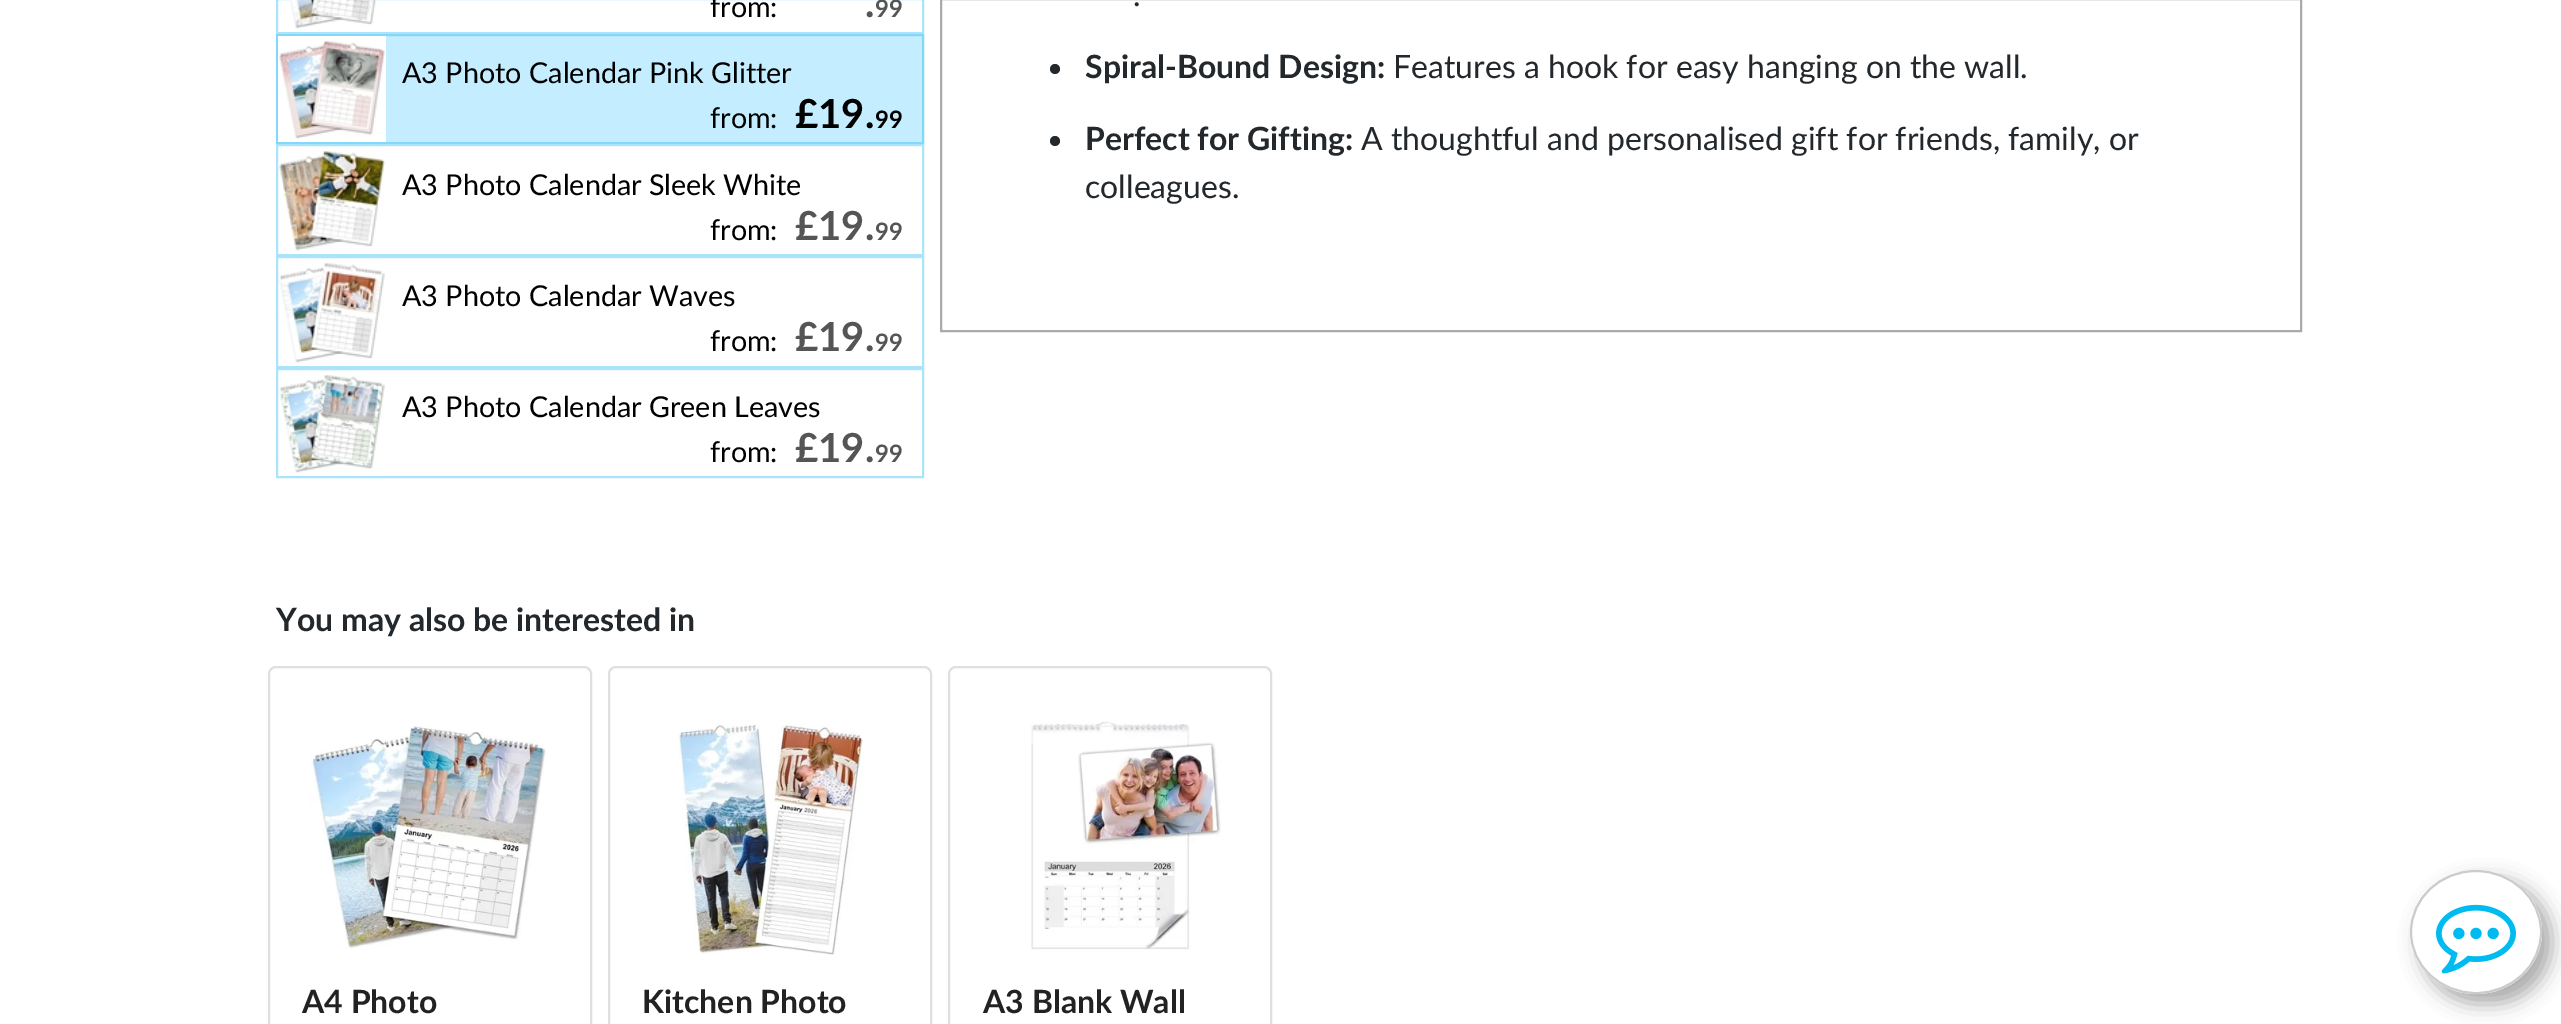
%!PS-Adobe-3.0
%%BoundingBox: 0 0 2561 1024
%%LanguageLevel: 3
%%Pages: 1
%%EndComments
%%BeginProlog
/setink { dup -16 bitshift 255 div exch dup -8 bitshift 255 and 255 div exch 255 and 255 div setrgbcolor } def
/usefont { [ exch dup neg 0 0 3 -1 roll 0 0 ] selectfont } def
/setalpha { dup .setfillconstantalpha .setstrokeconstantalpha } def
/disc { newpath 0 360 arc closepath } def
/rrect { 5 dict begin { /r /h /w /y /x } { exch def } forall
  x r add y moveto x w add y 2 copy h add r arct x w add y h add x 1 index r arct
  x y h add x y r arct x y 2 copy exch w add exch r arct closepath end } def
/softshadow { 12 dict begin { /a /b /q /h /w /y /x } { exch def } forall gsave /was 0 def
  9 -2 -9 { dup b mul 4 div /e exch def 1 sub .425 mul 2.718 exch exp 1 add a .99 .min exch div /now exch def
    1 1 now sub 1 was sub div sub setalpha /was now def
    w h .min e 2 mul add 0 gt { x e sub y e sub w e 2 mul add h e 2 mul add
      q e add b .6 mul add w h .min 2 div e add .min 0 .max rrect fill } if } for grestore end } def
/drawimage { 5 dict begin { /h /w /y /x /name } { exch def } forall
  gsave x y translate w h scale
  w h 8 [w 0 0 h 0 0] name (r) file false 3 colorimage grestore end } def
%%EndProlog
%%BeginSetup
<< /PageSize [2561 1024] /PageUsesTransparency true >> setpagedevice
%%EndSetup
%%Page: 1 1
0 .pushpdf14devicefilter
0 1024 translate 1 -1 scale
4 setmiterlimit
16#FFFFFF setink
0 0 2561 1024 rectfill
16#AAE3FA setink
2 setlinewidth
277 -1 646 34 rectstroke
(img1.raw) 290 0 86 29 drawimage
/Lato-Regular 28.75 usefont
16#000000 setink
710 17 moveto (from:) show
/Lato-Bold 40 usefont
16#555555 setink
865 17 moveto (.) show
/Lato-Bold 24 usefont
875 17 moveto (99) show
16#C4EEFF setink
386 36 536 106 rectfill
16#83D7FA setink
277 35 646 108 rectstroke
(img2.raw) 278 36 108 106 drawimage
/Lato-Regular 28.75 usefont
16#000000 setink
402 83 moveto (A3 Photo Calendar Pink Glitter) show
710 128 moveto (from:) show
/Lato-Bold 40 usefont
795 128 moveto (£19.) show
/Lato-Bold 24 usefont
875 128 moveto (99) show
16#AAE3FA setink
277 145 646 110 rectstroke
(img3.raw) 279 150 106 101 drawimage
/Lato-Regular 28.75 usefont
16#000000 setink
402 195 moveto (A3 Photo Calendar Sleek White) show
710 240 moveto (from:) show
/Lato-Bold 40 usefont
16#555555 setink
795 240 moveto (£19.) show
/Lato-Bold 24 usefont
875 240 moveto (99) show
16#AAE3FA setink
277 257 646 110 rectstroke
(img4.raw) 279 262 106 101 drawimage
/Lato-Regular 28.75 usefont
16#000000 setink
402 306 moveto (A3 Photo Calendar Waves) show
710 351 moveto (from:) show
/Lato-Bold 40 usefont
16#555555 setink
795 351 moveto (£19.) show
/Lato-Bold 24 usefont
875 351 moveto (99) show
16#AAE3FA setink
277 369 646 108 rectstroke
(img5.raw) 279 375 106 98 drawimage
/Lato-Regular 28.75 usefont
16#000000 setink
402 417 moveto (A3 Photo Calendar Green Leaves) show
710 462 moveto (from:) show
/Lato-Bold 40 usefont
16#555555 setink
795 462 moveto (£19.) show
/Lato-Bold 24 usefont
875 462 moveto (99) show
16#AAAAAA setink
941 -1 1360 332 rectstroke
/Lato-Regular 32 usefont
16#23282C setink
1133 6 moveto (.) show
1055 69 5 disc fill
/Lato-Bold 32 usefont
1085 78 moveto (Spiral-Bound Design:) show
/Lato-Regular 32 usefont
1393 78 moveto (Features a hook for easy hanging on the wall.) show
1055 141 5 disc fill
/Lato-Bold 32 usefont
1085 150 moveto (Perfect for Gifting:) show
/Lato-Regular 32 usefont
1361 150 moveto (A thoughtful and personalised gift for friends, family, or) show
1085 198 moveto (colleagues.) show
/Lato-Bold 32 usefont
276 631 moveto (You may also be interested in) show
16#DFDFDF setink
269 667 322 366 7 rrect stroke
(img6.raw) 310 726 237 223 drawimage
16#222222 setink
302 1013 moveto (A4 Photo) show
16#DFDFDF setink
609 667 322 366 7 rrect stroke
(img7.raw) 677 723 186 232 drawimage
16#222222 setink
642 1013 moveto (Kitchen Photo) show
16#DFDFDF setink
949 667 322 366 7 rrect stroke
(img8.raw) 1031 721 190 229 drawimage
16#222222 setink
983 1013 moveto (A3 Blank Wall) show
16#000000 setink
2420 880 132 124 62 10 0.33 softshadow
16#FFFFFF setink
2476 870 moveto 2512.5 870 2542 898 2542 932 curveto 2542 966 2512.5 994 2476 994 curveto 2439.5 994 2410 966 2410 932 curveto 2410 898 2439.5 870 2476 870 curveto closepath fill
16#CBCBCB setink
2476 871 moveto 2512 871 2541 898.5 2541 932 curveto 2541 965.5 2512 993 2476 993 curveto 2440 993 2411 965.5 2411 932 curveto 2411 898.5 2440 871 2476 871 curveto closepath stroke
(img9.raw) 2436 904 80 70 drawimage
.poppdf14devicefilter showpage
%%EOF
